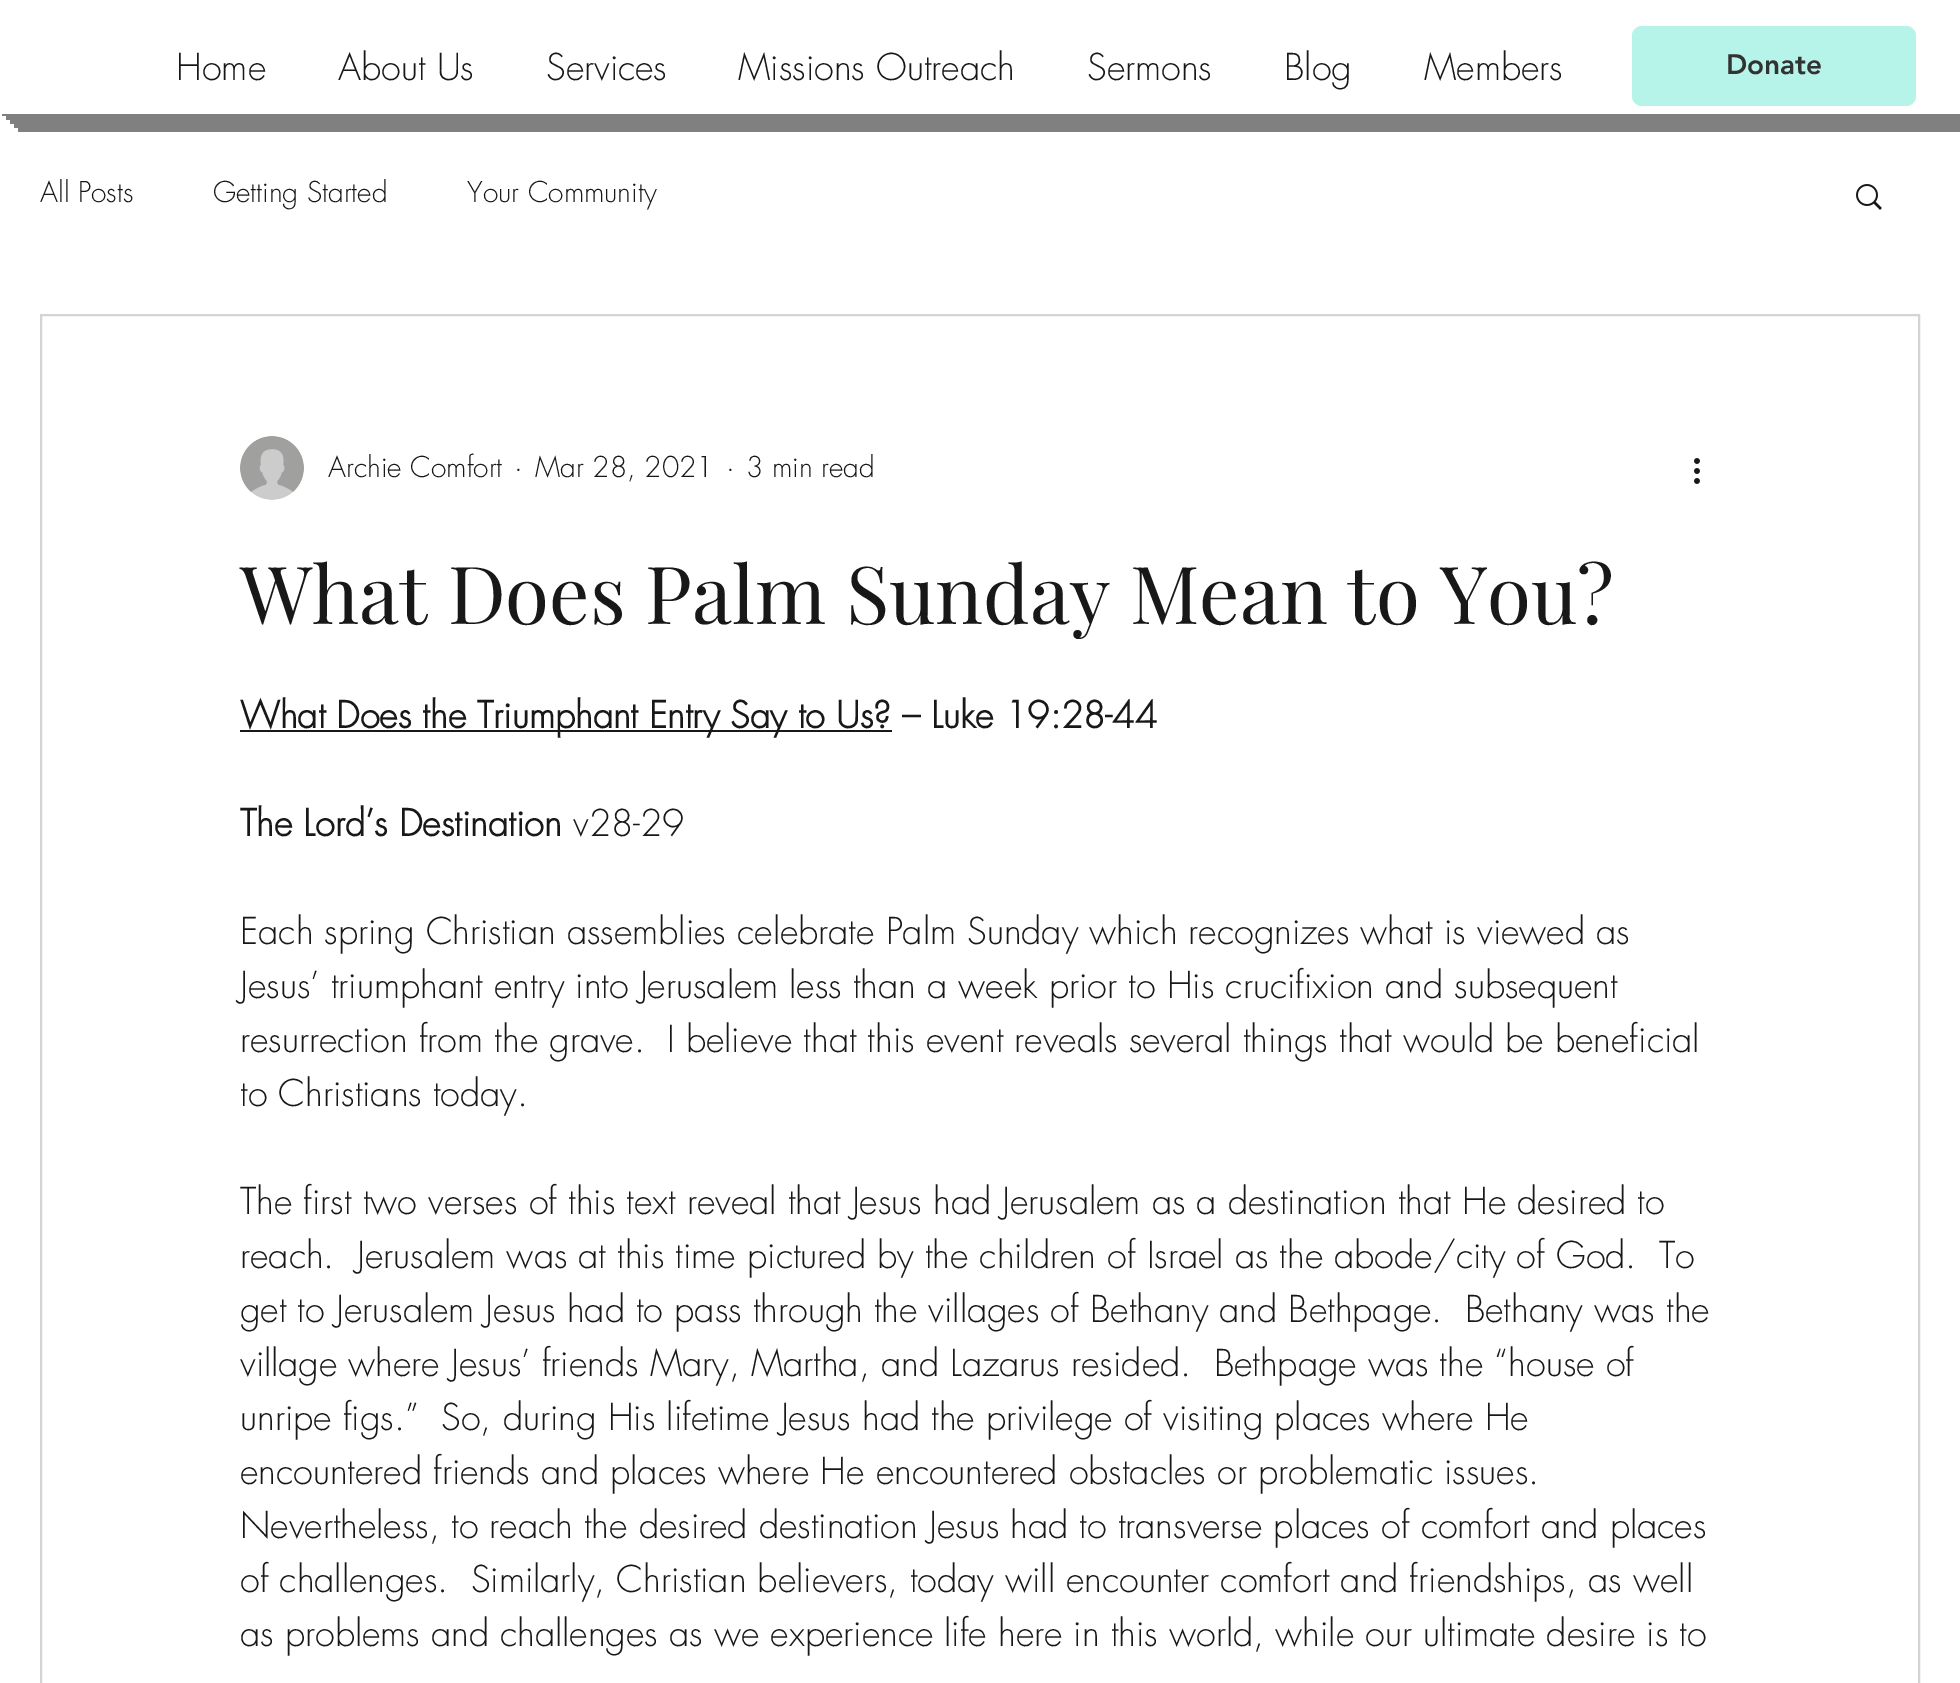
%!PS-Adobe-3.0
%%BoundingBox: 0 0 1960 1683
%%LanguageLevel: 3
%%Pages: 1
%%EndComments
%%BeginProlog
/setink { dup -16 bitshift 255 div exch dup -8 bitshift 255 and 255 div exch 255 and 255 div setrgbcolor } def
/usefont { [ exch dup neg 0 0 3 -1 roll 0 0 ] selectfont } def
/rrect { 5 dict begin { /r /h /w /y /x } { exch def } forall
  x r add y moveto x w add y 2 copy h add r arct x w add y h add x 1 index r arct
  x y h add x y r arct x y 2 copy exch w add exch r arct closepath end } def
/drawimage { 5 dict begin { /h /w /y /x /name } { exch def } forall
  gsave x y translate w h scale
  w h 8 [w 0 0 h 0 0] name (r) file false 3 colorimage grestore end } def
%%EndProlog
%%BeginSetup
<< /PageSize [1960 1683] >> setpagedevice
%%EndSetup
%%Page: 1 1
0 1683 translate 1 -1 scale
4 setmiterlimit
16#FFFFFF setink
0 0 1960 1683 rectfill
/futura-Light 36 usefont
16#181818 setink
[
    [(Home) 176 80]
    [(About Us) 338 80]
    [(Services) 546 80]
    [(Missions Outreach) 738 80]
    [(Sermons) 1087 80]
    [(Blog) 1284 80]
    [(Members) 1424 80]
] { aload pop moveto show } forall
16#B6F3E8 setink
1632 26 284 80 10 rrect fill
/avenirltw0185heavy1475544-Black 28 usefont
16#323232 setink
1726 74 moveto (Donate) show
16#808080 setink
18 114 moveto 18 132 lineto 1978 132 lineto 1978 18 lineto 1960 18 lineto 1960 114 lineto closepath fill
14 114 moveto 14 128 lineto 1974 128 lineto 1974 14 lineto 1960 14 lineto 1960 114 lineto closepath fill
10 114 moveto 10 124 lineto 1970 124 lineto 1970 10 lineto 1960 10 lineto 1960 114 lineto closepath fill
6 114 moveto 6 120 lineto 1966 120 lineto 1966 6 lineto 1960 6 lineto 1960 114 lineto closepath fill
2 114 moveto 2 116 lineto 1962 116 lineto 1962 2 lineto 1960 2 lineto 1960 114 lineto closepath fill
/futura-Light 28 usefont
16#181818 setink
[
    [(All Posts) 40 202]
    [(Getting Started) 213 202]
    [(Your Community) 467 202]
] { aload pop moveto show } forall
(img1.raw) 1856 184 26 26 drawimage
16#D4D4D4 setink
2 setlinewidth
41 315 1878 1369 rectstroke
(img2.raw) 240 436 64 64 drawimage
16#181818 setink
[
    [(Archie Comfort) 328 477]
    [(·) 514 477]
    [(Mar 28, 2021) 535 477]
    [(·) 726 477]
    [(3 min read) 746 477]
] { aload pop moveto show } forall
(img3.raw) 1694 458 6 26 drawimage
/PlayfairDisplay-Regular 80 usefont
240 624 moveto (What Does Palm Sunday Mean to You?) show
240 730 652 2 rectfill
/futura-Bold 36 usefont
240 728 moveto (What Does the Triumphant Entry Say to Us? – Luke 19:28-44) show
240 836 moveto (The Lord’s Destination) show
/futura-Light 36 usefont
[
    [(v28-29) 573 836]
    [(Each spring Christian assemblies celebrate Palm Sunday which recognizes what is viewed as) 240 944]
    [(Jesus’ triumphant entry into Jerusalem less than a week prior to His crucifixion and subsequent) 240 998]
    [(resurrection from the grave.  I believe that this event reveals several things that would be beneficial) 240 1052]
    [(to Christians today.) 240 1106]
    [(The first two verses of this text reveal that Jesus had Jerusalem as a destination that He desired to) 240 1214]
    [(reach.  Jerusalem was at this time pictured by the children of Israel as the abode/city of God.  To) 240 1268]
    [(get to Jerusalem Jesus had to pass through the villages of Bethany and Bethpage.  Bethany was the) 240 1322]
    [(village where Jesus’ friends Mary, Martha, and Lazarus resided.  Bethpage was the “house of) 240 1376]
    [(unripe figs.”  So, during His lifetime Jesus had the privilege of visiting places where He) 240 1430]
    [(encountered friends and places where He encountered obstacles or problematic issues.) 240 1484]
    [(Nevertheless, to reach the desired destination Jesus had to transverse places of comfort and places) 240 1538]
    [(of challenges.  Similarly, Christian believers, today will encounter comfort and friendships, as well) 240 1592]
    [(as problems and challenges as we experience life here in this world, while our ultimate desire is to) 240 1646]
] { aload pop moveto show } forall
showpage
%%EOF
